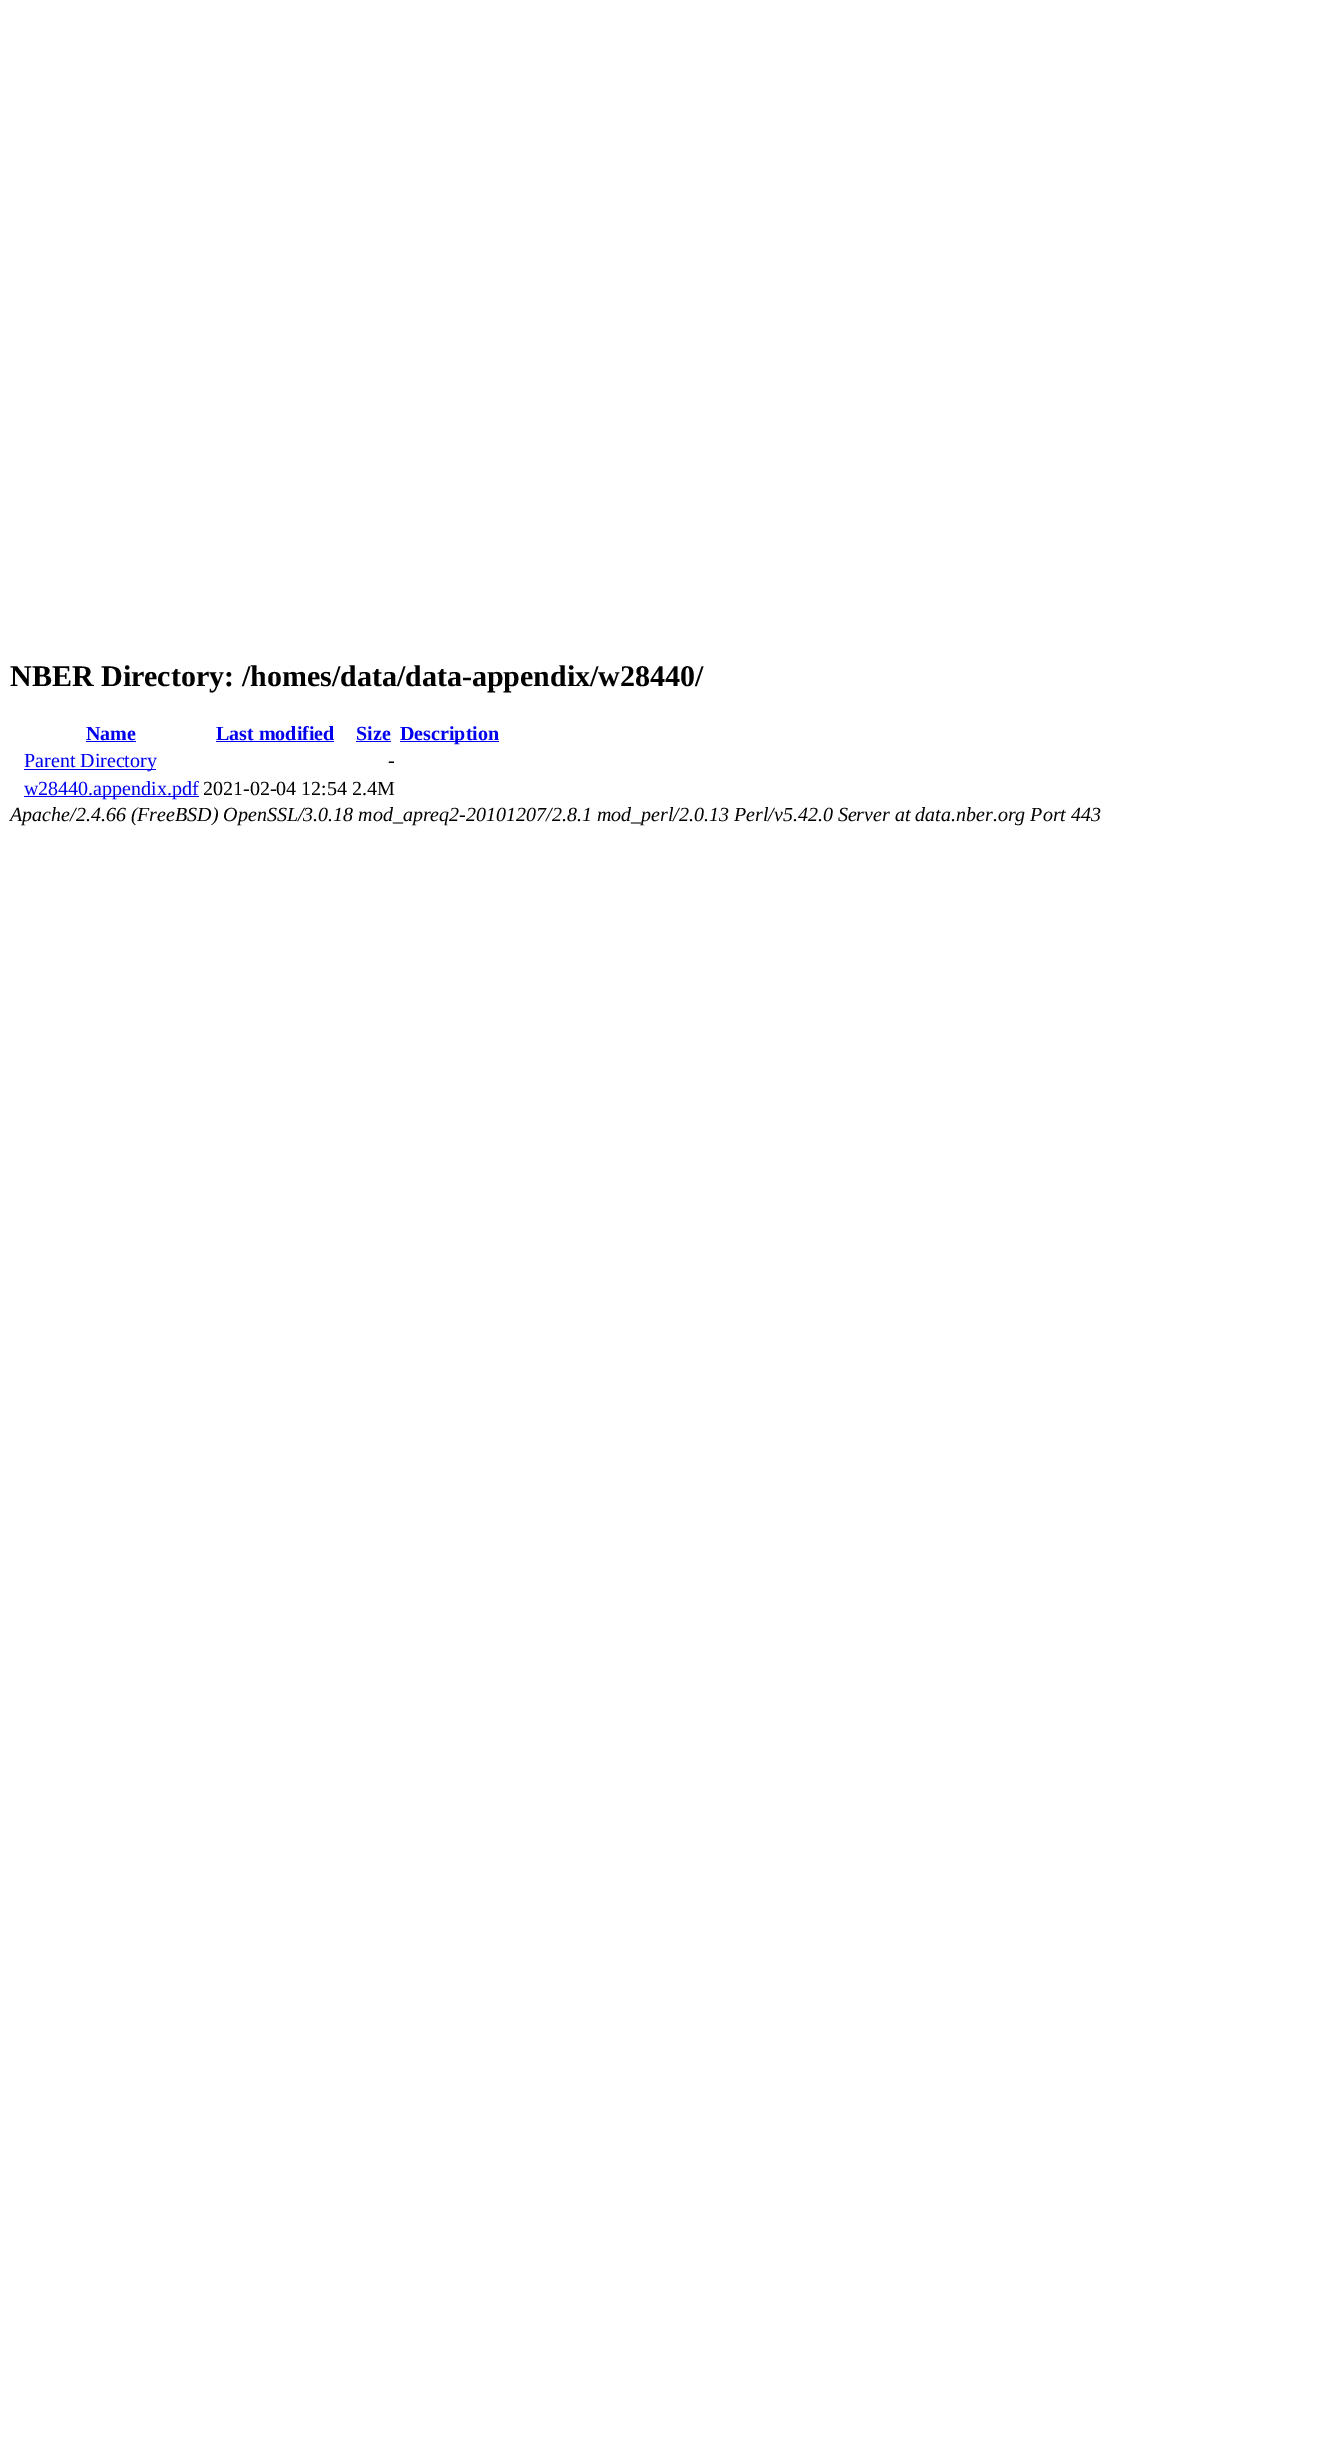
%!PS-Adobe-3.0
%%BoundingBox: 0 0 1335 2460
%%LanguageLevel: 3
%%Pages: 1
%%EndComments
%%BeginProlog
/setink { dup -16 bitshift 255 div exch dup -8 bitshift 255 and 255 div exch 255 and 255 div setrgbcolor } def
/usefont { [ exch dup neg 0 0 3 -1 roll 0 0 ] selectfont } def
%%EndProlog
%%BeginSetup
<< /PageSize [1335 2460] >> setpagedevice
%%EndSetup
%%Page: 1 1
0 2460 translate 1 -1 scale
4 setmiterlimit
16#FFFFFF setink
0 0 1335 2460 rectfill
/LiberationSerif-Bold 30 usefont
16#000000 setink
10 686 moveto (NBER Directory: /homes/data/data-appendix/w28440/) show
/LiberationSerif-Bold 20 usefont
16#0000EE setink
86 740 moveto (Name) show
86 741 50 1 rectfill
216 740 moveto (Last modified) show
216 741 118 1 rectfill
356 740 moveto (Size) show
356 741 35 1 rectfill
400 741 99 1 rectfill
400 740 moveto (Description) show
24 769 132 1 rectfill
/LiberationSerif-Regular 20 usefont
24 767 moveto (Parent Directory) show
16#000000 setink
388 767 moveto (-) show
16#0000EE setink
24 796 175 1 rectfill
24 795 moveto (w28440.appendix.pdf) show
16#000000 setink
203 795 moveto (2021-02-04 12:54 2.4M) show
/LiberationSerif-Italic 20 usefont
10 821 moveto (Apache/2.4.66 \(FreeBSD\) OpenSSL/3.0.18 mod_apreq2-20101207/2.8.1 mod_perl/2.0.13 Perl/v5.42.0 Server at data.nber.org Port 443) show
showpage
%%EOF
